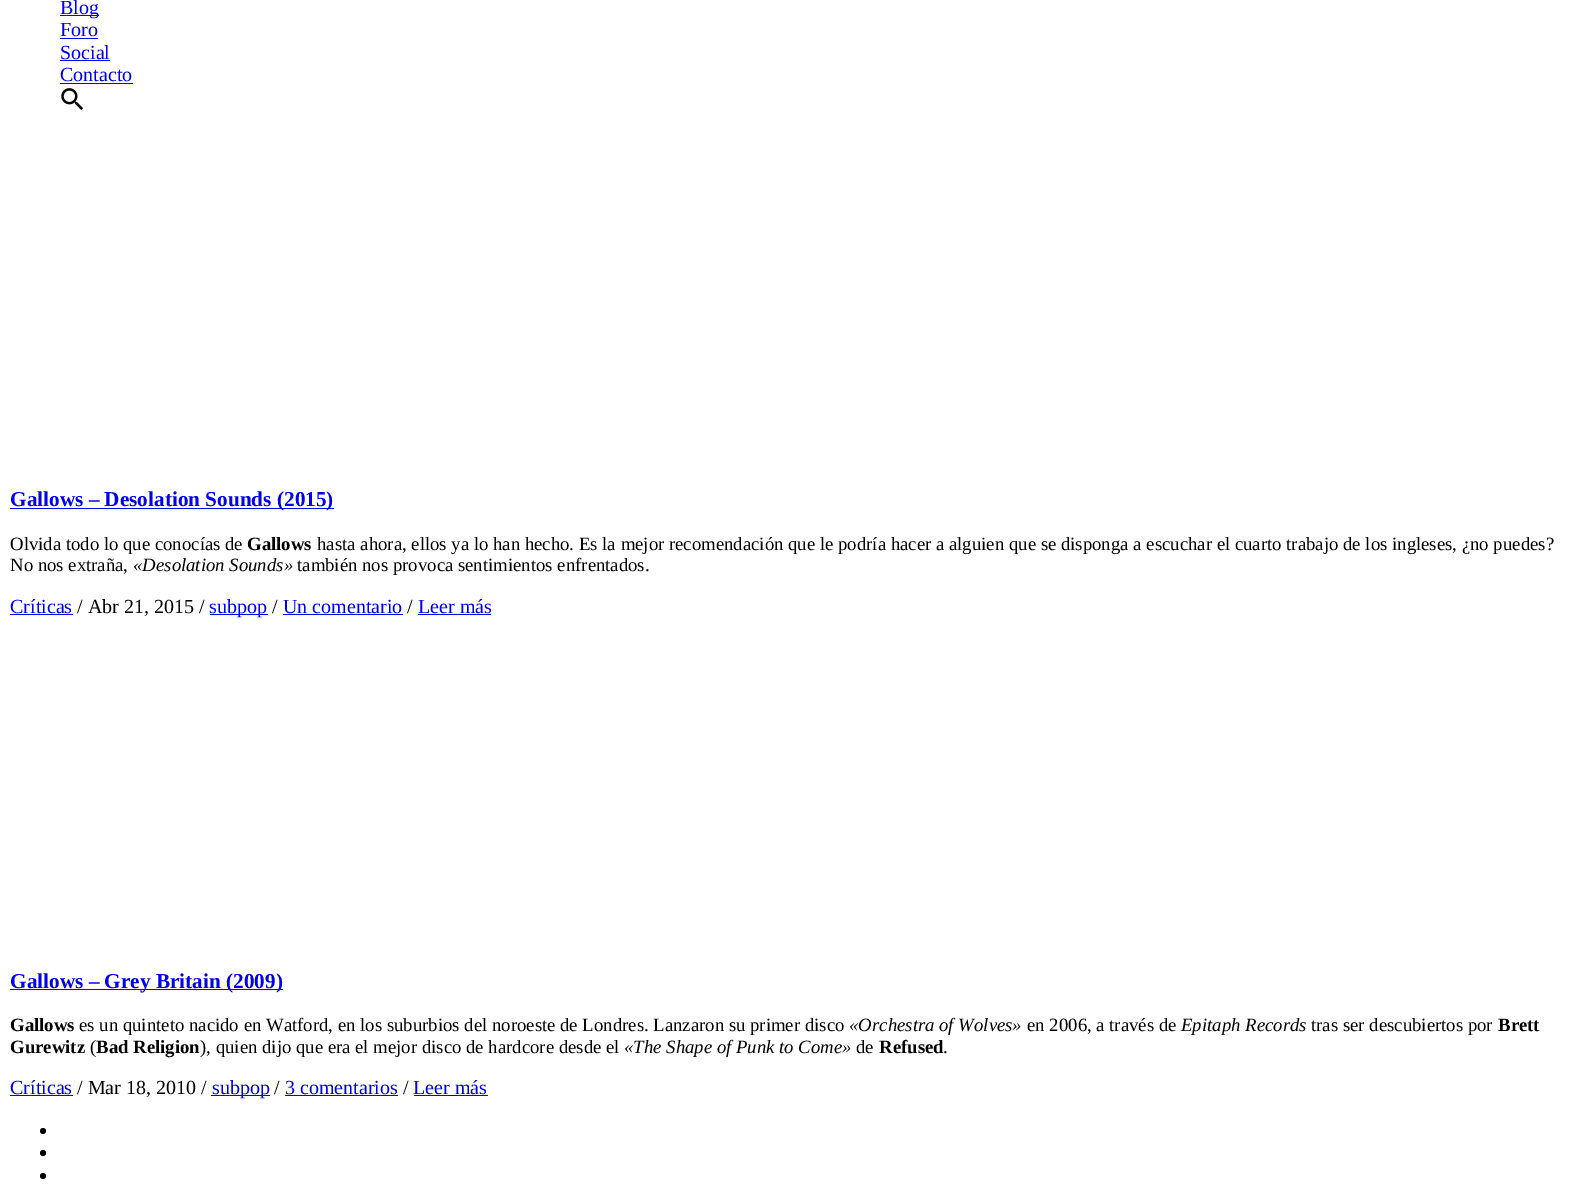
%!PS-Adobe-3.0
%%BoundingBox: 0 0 1579 1187
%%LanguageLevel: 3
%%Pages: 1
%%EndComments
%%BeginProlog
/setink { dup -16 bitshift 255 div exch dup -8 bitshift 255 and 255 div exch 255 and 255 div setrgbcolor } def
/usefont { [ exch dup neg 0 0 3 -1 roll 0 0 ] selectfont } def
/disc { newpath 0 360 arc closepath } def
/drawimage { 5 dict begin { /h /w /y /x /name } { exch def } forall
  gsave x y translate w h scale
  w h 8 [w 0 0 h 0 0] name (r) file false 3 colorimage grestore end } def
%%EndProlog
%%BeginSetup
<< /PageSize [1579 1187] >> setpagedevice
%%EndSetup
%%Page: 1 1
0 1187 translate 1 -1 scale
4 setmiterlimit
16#FFFFFF setink
0 0 1579 1187 rectfill
16#0000EE setink
60 15 39 1 rectfill
/LiberationSerif-Regular 20 usefont
60 14 moveto (Blog) show
60 36 moveto (Foro) show
60 38 38 1 rectfill
60 59 moveto (Social) show
60 60 50 1 rectfill
60 81 moveto (Contacto) show
60 83 73 1 rectfill
(img1.raw) 61 88 22 22 drawimage
10 508 324 1 rectfill
/LiberationSerif-Bold 21.25 usefont
10 506 moveto (Gallows – Desolation Sounds \(2015\)) show
/LiberationSerif-Regular 18.75 usefont
16#000000 setink
10 550 moveto (Olvida todo lo que conocías de) show
/LiberationSerif-Bold 18.75 usefont
247 550 moveto (Gallows) show
/LiberationSerif-Regular 18.75 usefont
317 550 moveto (hasta ahora, ellos ya lo han hecho. Es la mejor recomendación que le podría hacer a alguien que se disponga a escuchar el cuarto trabajo de los ingleses, ¿no puedes?) show
10 571 moveto (No nos extraña,) show
/LiberationSerif-Italic 18.75 usefont
133 571 moveto («Desolation Sounds») show
/LiberationSerif-Regular 18.75 usefont
297 571 moveto (también nos provoca sentimientos enfrentados.) show
/LiberationSerif-Regular 20 usefont
16#0000EE setink
10 613 moveto (Críticas) show
10 614 63 1 rectfill
16#000000 setink
77 613 moveto (/ Abr 21, 2015 /) show
16#0000EE setink
210 614 58 1 rectfill
209 613 moveto (subpop) show
16#000000 setink
272 613 moveto (/) show
16#0000EE setink
283 613 moveto (Un comentario) show
283 614 120 1 rectfill
16#000000 setink
407 613 moveto (/) show
16#0000EE setink
418 613 moveto (Leer más) show
418 614 73 1 rectfill
10 989 273 1 rectfill
/LiberationSerif-Bold 21.25 usefont
10 988 moveto (Gallows – Grey Britain \(2009\)) show
/LiberationSerif-Bold 18.75 usefont
16#000000 setink
10 1031 moveto (Gallows) show
/LiberationSerif-Regular 18.75 usefont
79 1031 moveto (es un quinteto nacido en Watford, en los suburbios del noroeste de Londres. Lanzaron su primer disco) show
/LiberationSerif-Italic 18.75 usefont
849 1031 moveto («Orchestra of Wolves») show
/LiberationSerif-Regular 18.75 usefont
1027 1031 moveto (en 2006, a través de) show
/LiberationSerif-Italic 18.75 usefont
1181 1031 moveto (Epitaph Records) show
/LiberationSerif-Regular 18.75 usefont
1311 1031 moveto (tras ser descubiertos por) show
/LiberationSerif-Bold 18.75 usefont
1498 1031 moveto (Brett) show
10 1053 moveto (Gurewitz) show
/LiberationSerif-Regular 18.75 usefont
90 1053 moveto (\() show
/LiberationSerif-Bold 18.75 usefont
96 1053 moveto (Bad Religion) show
/LiberationSerif-Regular 18.75 usefont
200 1053 moveto (\), quien dijo que era el mejor disco de hardcore desde el) show
/LiberationSerif-Italic 18.75 usefont
624 1053 moveto («The Shape of Punk to Come») show
/LiberationSerif-Regular 18.75 usefont
856 1053 moveto (de) show
/LiberationSerif-Bold 18.75 usefont
879 1053 moveto (Refused) show
/LiberationSerif-Regular 18.75 usefont
943 1053 moveto (.) show
/LiberationSerif-Regular 20 usefont
16#0000EE setink
10 1094 moveto (Críticas) show
10 1095 63 1 rectfill
16#000000 setink
77 1094 moveto (/ Mar 18, 2010 /) show
16#0000EE setink
211 1095 59 1 rectfill
212 1094 moveto (subpop) show
16#000000 setink
274 1094 moveto (/) show
16#0000EE setink
285 1094 moveto (3 comentarios) show
285 1095 113 1 rectfill
16#000000 setink
403 1094 moveto (/) show
16#0000EE setink
413 1094 moveto (Leer más) show
414 1095 74 1 rectfill
16#000000 setink
43 1131 3 disc fill
43 1153 3 disc fill
43 1176 3 disc fill
showpage
%%EOF
